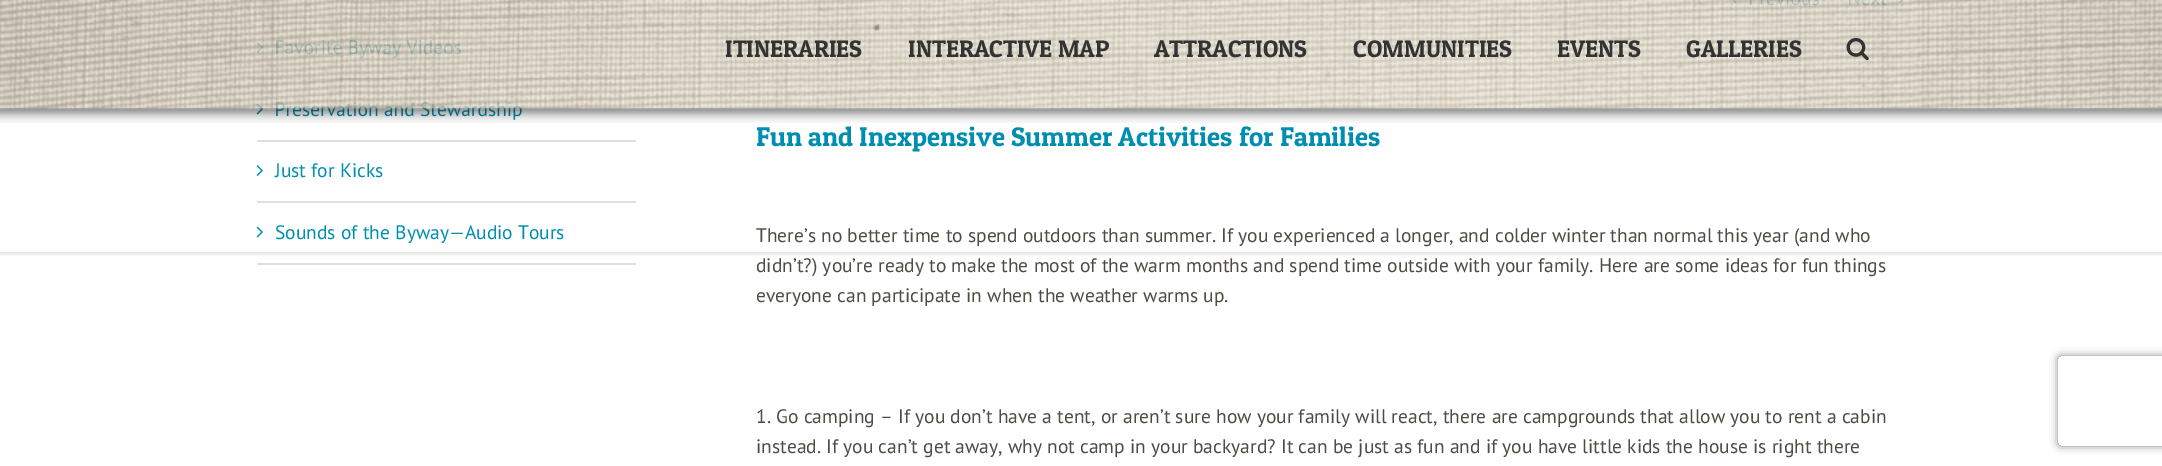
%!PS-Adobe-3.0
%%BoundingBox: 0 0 2162 466
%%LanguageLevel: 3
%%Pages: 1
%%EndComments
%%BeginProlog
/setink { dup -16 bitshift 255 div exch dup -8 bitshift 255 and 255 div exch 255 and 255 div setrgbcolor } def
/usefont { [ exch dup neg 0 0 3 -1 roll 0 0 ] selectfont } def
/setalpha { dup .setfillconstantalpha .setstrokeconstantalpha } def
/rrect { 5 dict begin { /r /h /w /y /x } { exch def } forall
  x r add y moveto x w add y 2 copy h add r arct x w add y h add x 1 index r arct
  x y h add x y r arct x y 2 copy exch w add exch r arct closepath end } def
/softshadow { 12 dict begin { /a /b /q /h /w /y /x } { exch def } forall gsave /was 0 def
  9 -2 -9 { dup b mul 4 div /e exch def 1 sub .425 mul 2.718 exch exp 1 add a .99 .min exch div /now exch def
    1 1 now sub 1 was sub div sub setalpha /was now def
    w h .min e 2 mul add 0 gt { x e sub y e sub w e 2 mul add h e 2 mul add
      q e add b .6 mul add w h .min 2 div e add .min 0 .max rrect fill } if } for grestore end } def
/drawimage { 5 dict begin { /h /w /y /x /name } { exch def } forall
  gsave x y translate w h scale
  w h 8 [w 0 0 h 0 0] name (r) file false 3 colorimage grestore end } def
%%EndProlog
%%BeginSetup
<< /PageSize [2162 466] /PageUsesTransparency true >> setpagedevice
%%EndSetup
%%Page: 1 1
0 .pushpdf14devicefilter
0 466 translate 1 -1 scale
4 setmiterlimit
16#FFFFFF setink
0 0 2162 466 rectfill
(img3.raw) 256 42 7 11 drawimage
16#E0DEDE setink
257 140 379 2 rectfill
(img4.raw) 256 103 7 12 drawimage
257 201 379 2 rectfill
(img3.raw) 256 165 7 11 drawimage
(img4.raw) 256 226 7 12 drawimage
(img5.raw) 1732 0 5 3 drawimage
(img6.raw) 1899 0 4 3 drawimage
gsave
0 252 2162 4 rectclip
16#000000 setink
0 2 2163 252 0 2 0.12 softshadow
grestore
/PTSans-Regular 19.5 usefont
16#008EB0 setink
275 116 moveto (Preservation and Stewardship) show
(img1.raw) 0 0 2162 123 drawimage
/PatuaOne-Regular 24 usefont
16#333333 setink
[
    [(ITINERARIES) 725 57]
    [(INTERACTIVE MAP) 908 57]
    [(ATTRACTIONS) 1154 57]
    [(COMMUNITIES) 1353 57]
    [(EVENTS) 1557 57]
    [(GALLERIES) 1686 57]
] { aload pop moveto show } forall
(img2.raw) 1846 37 23 24 drawimage
/PTSans-Regular 19.5 usefont
16#008EB0 setink
275 177 moveto (Just for Kicks) show
16#E0DEDE setink
257 263 379 2 rectfill
16#008EB0 setink
275 239 moveto (Sounds of the Byway—Audio Tours) show
/PatuaOne-Regular 27 usefont
756 146 moveto (Fun and Inexpensive Summer Activities for Families) show
/PTSans-Regular 19.5 usefont
16#4E4B42 setink
[
    [(There’s no better time to spend outdoors than summer. If you experienced a longer, and colder winter than normal this year \(and who) 756 242]
    [(didn’t?\) you’re ready to make the most of the warm months and spend time outside with your family. Here are some ideas for fun things) 756 272]
    [(everyone can participate in when the weather warms up.) 756 302]
    [(1. Go camping – If you don’t have a tent, or aren’t sure how your family will react, there are campgrounds that allow you to rent a cabin) 756 423]
    [(instead. If you can’t get away, why not camp in your backyard? It can be just as fun and if you have little kids the house is right there) 756 453]
] { aload pop moveto show } forall
gsave
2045 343 moveto 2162 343 lineto 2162 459 lineto 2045 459 lineto closepath 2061 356 moveto 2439 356 lineto 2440.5 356 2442 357.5 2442 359 curveto 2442 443 lineto 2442 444.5 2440.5 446 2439 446 curveto 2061 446 lineto 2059.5 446 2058 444.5 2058 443 curveto 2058 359 lineto 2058 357.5 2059.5 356 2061 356 curveto closepath eoclip newpath
16#808080 setink
2058 356 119 90 3 4 1 softshadow
grestore
.poppdf14devicefilter showpage
%%EOF
